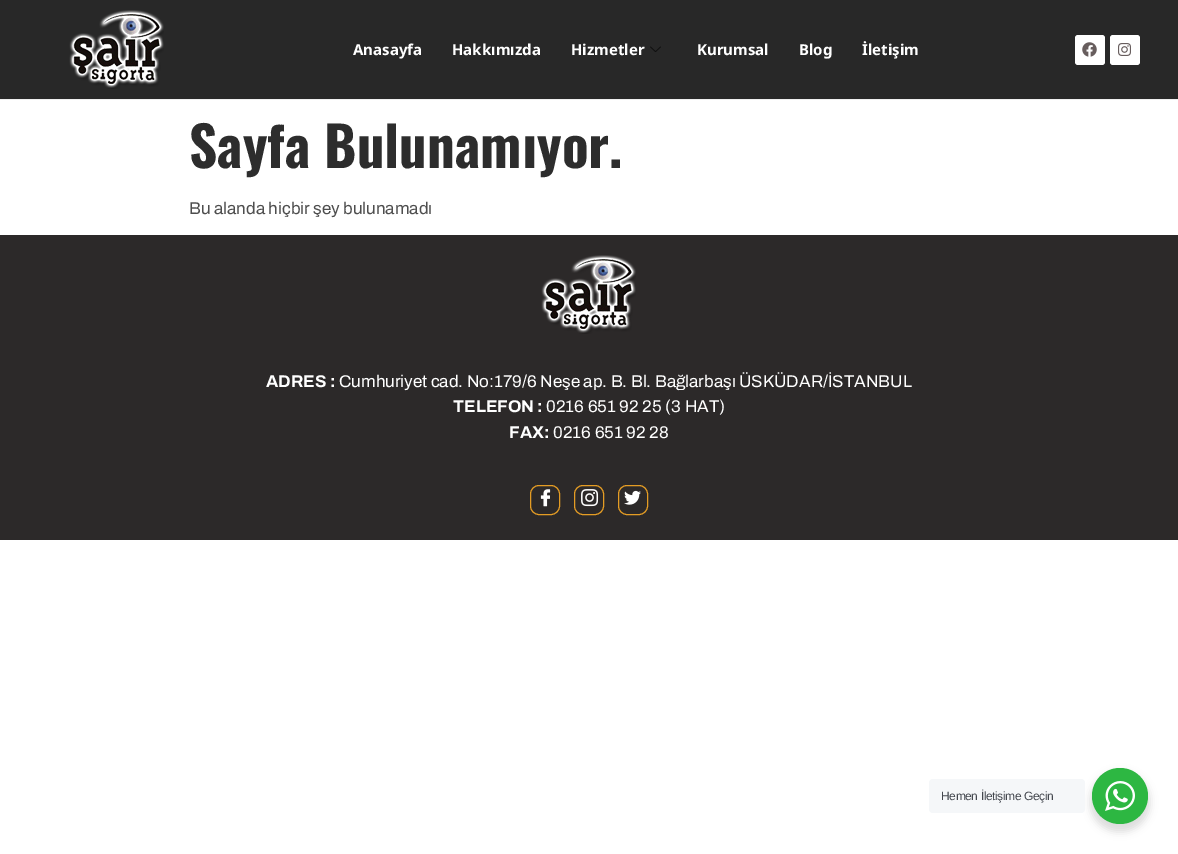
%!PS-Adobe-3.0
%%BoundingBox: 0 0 1178 854
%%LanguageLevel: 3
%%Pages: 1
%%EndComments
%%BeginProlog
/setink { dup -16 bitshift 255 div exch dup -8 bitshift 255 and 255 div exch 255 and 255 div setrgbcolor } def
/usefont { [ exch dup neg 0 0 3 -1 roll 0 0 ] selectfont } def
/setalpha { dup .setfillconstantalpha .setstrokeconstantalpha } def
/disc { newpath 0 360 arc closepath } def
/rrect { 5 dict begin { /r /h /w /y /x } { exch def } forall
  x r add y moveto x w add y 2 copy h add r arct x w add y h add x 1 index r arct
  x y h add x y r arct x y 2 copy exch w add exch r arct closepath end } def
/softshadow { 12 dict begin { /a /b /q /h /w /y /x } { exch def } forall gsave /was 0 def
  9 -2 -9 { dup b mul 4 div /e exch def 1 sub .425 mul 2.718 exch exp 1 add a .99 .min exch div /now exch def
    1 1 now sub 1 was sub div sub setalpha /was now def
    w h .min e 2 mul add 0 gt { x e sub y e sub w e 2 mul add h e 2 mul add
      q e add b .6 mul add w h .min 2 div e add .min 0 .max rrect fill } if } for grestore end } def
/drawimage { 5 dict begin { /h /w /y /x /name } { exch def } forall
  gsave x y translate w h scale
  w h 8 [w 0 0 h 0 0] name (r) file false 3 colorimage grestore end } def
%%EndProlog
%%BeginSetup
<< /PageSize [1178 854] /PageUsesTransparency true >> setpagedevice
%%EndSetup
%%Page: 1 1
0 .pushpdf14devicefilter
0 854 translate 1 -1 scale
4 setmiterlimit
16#FFFFFF setink
0 0 1178 854 rectfill
16#282828 setink
0 0 1178 99 rectfill
16#EFEFEF setink
0 99 1178 1 rectfill
(img1.raw) 69 10 95 79 drawimage
/NotoSans-Bold 15 usefont
16#FFFFFF setink
[
    [(Anasayfa) 353 55]
    [(Hakkımızda) 452 55]
    [(Hizmetler) 571 55]
] { aload pop moveto show } forall
(img2.raw) 650 46 11 6 drawimage
[
    [(Kurumsal) 697 55]
    [(Blog) 799 55]
    [(İletişim) 862 55]
] { aload pop moveto show } forall
1075 35 30 30 3 rrect fill
(img3.raw) 1082 42 15 15 drawimage
1110 35 30 30 3 rrect fill
(img4.raw) 1118 43 13 13 drawimage
/Oswald-Bold 55 usefont
16#2D2D2D setink
189 168 moveto (Sayfa Bulunamıyor.) show
/Archivo-Regular 17 usefont
16#4E4E4E setink
189 214 moveto (Bu alanda hiçbir şey bulunamadı) show
16#2C2929 setink
0 235 1178 305 rectfill
(img5.raw) 541 255 95 79 drawimage
/Archivo-Bold 17 usefont
16#FFFFFF setink
266 387 moveto (ADRES :) show
/Archivo-Regular 17 usefont
339 387 moveto (Cumhuriyet cad. No:179/6 Neşe ap. B. Bl. Bağlarbaşı ÜSKÜDAR/İSTANBUL) show
/Archivo-Bold 17 usefont
453 412 moveto (TELEFON :) show
/Archivo-Regular 17 usefont
546 412 moveto (0216 651 92 25 \(3 HAT\)) show
/Archivo-Bold 17 usefont
509 438 moveto (FAX:) show
/Archivo-Regular 17 usefont
553 438 moveto (0216 651 92 28) show
16#E49C24 setink
530.5 485.5 29 29 8.5 rrect stroke
(img6.raw) 540 489 11 18 drawimage
574.5 485.5 29 29 8.5 rrect stroke
(img7.raw) 581 489 18 18 drawimage
618.5 485.5 29 29 8.5 rrect stroke
(img8.raw) 624 490 17 15 drawimage
16#000000 setink
1090 772 60 60 30 4 0.14 softshadow
16#F5F7F9 setink
929 779 156 34 4 rrect fill
/LiberationSans-Regular 12 usefont
16#43474E setink
941 800 moveto -0.4 0 (Hemen İletişime Geçin) ashow
16#2DB742 setink
1120 796 28 disc fill
(img9.raw) 1105 781 30 30 drawimage
.poppdf14devicefilter showpage
%%EOF
